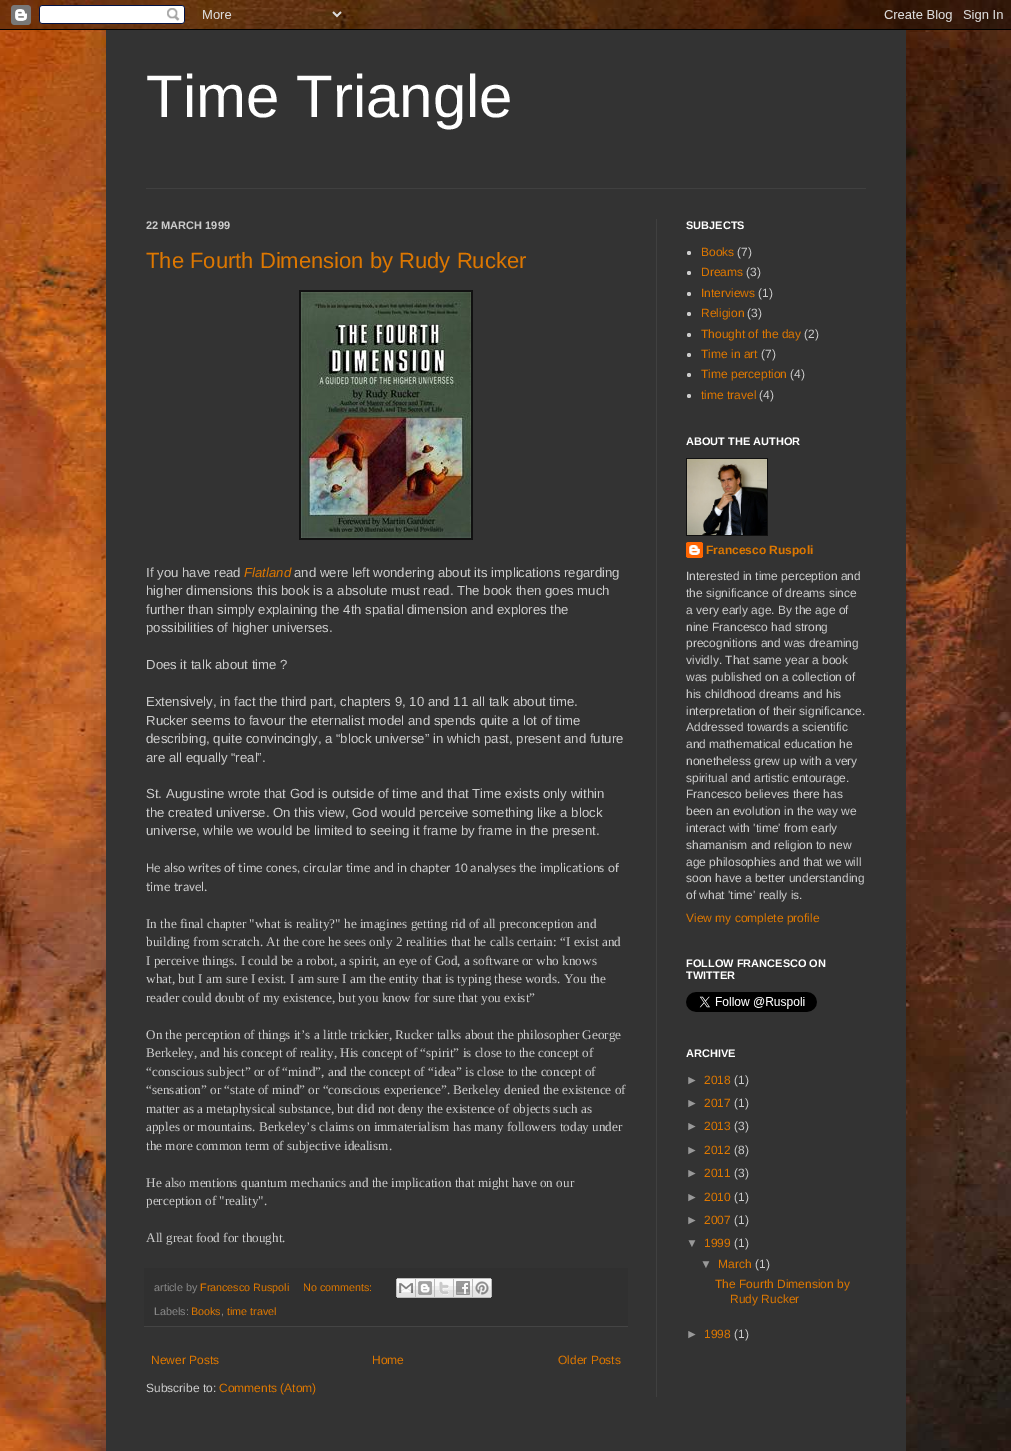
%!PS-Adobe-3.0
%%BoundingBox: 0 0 1011 1451
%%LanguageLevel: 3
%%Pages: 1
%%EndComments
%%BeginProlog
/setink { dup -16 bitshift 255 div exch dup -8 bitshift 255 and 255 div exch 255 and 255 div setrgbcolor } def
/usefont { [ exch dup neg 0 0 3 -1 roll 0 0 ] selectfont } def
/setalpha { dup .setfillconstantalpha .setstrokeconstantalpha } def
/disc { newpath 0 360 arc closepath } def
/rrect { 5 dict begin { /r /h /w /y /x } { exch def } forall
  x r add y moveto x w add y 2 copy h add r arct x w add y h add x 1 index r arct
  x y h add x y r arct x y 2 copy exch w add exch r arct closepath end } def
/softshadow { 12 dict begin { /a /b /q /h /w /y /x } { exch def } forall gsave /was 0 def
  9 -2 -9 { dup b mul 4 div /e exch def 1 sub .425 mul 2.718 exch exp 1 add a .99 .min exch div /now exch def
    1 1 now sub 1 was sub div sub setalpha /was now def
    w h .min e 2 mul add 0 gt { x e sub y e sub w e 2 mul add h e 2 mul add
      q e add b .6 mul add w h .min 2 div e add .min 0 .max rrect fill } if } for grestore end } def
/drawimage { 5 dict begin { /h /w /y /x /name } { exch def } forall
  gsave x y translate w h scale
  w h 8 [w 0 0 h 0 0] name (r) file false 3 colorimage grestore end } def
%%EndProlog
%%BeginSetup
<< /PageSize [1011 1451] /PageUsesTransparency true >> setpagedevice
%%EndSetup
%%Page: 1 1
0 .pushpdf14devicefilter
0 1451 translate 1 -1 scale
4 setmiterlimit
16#FFFFFF setink
0 0 1011 1451 rectfill
(img1.raw) 0 0 1011 1451 drawimage
(img2.raw) 40 0 971 400 drawimage
16#000000 setink
106 30 800 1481 0 20 0.15 softshadow
(img3.raw) 0 0 1011 30 drawimage
16#333333 setink
106 30 800 1421 rectfill
/LiberationSans-Regular 60 usefont
16#FFFFFF setink
146 117 moveto (Time Triangle) show
16#404040 setink
146 188 720 1 rectfill
656 219 1 1178 rectfill
/LiberationSans-Bold 11 usefont
16#CCCCCC setink
146 229 moveto (22 MARCH 1999) show
/LiberationSans-Regular 22 usefont
16#DD7700 setink
146 268 moveto (The Fourth Dimension by Rudy Rucker) show
16#111111 setink
299 290 174 250 rectfill
(img4.raw) 301 292 170 246 drawimage
/LiberationSans-Regular 13.2 usefont
16#CCCCCC setink
146 577 moveto (If you have read) show
/LiberationSans-Italic 13.2 usefont
16#DD7700 setink
244 577 moveto (Flatland) show
/LiberationSans-Regular 13.2 usefont
16#CCCCCC setink
[
    [(and were left wondering about its implications regarding) 294 577]
    [(higher dimensions this book is a absolute must read. The book then goes much) 146 595]
    [(further than simply explaining the 4th spatial dimension and explores the) 146 614]
    [(possibilities of higher universes.) 146 632]
    [(Does it talk about time ?) 146 669]
    [(Extensively, in fact the third part, chapters 9, 10 and 11 all talk about time.) 146 706]
    [(Rucker seems to favour the eternalist model and spends quite a lot of time) 146 725]
    [(describing, quite convincingly, a “block universe” in which past, present and future) 146 743]
    [(are all equally “real”.) 146 762]
    [(St. Augustine wrote that God is outside of time and that Time exists only within) 146 798]
    [(the created universe. On this view, God would perceive something like a block) 146 817]
    [(universe, while we would be limited to seeing it frame by frame in the present.) 146 835]
] { aload pop moveto show } forall
/Carlito-Regular 13.2 usefont
146 872 moveto (He also writes of time cones, circular time and in chapter 10 analyses the implications of) show
146 891 moveto (time travel.) show
/LiberationSerif-Regular 13.2 usefont
[
    [(In the final chapter "what is reality?" he imagines getting rid of all preconception and) 146 928]
    [(building from scratch. At the core he sees only 2 realities that he calls certain: “I exist and) 146 946]
    [(I perceive things. I could be a robot, a spirit, an eye of God, a software or who knows) 146 965]
    [(what, but I am sure I exist. I am sure I am the entity that is typing these words. You the) 146 983]
    [(reader could doubt of my existence, but you know for sure that you exist”) 146 1002]
    [(On the perception of things it’s a little trickier, Rucker talks about the philosopher George) 146 1039]
    [(Berkeley, and his concept of reality, His concept of “spirit” is close to the concept of) 146 1057]
    [(“conscious subject” or of “mind”, and the concept of “idea” is close to the concept of) 146 1076]
    [(“sensation” or “state of mind” or “conscious experience”. Berkeley denied the existence of) 146 1094]
    [(matter as a metaphysical substance, but did not deny the existence of objects such as) 146 1113]
    [(apples or mountains. Berkeley’s claims on immaterialism has many followers today under) 146 1131]
    [(the more common term of subjective idealism.) 146 1150]
    [(He also mentions quantum mechanics and the implication that might have on our) 146 1187]
    [(perception of "reality".) 146 1205]
    [(All great food for thought.) 146 1242]
] { aload pop moveto show } forall
16#303030 setink
144 1268 484 58 rectfill
16#444444 setink
144 1326 484 1 rectfill
/LiberationSans-Regular 10.75 usefont
16#888888 setink
154 1291 moveto (article by) show
16#DD7700 setink
200 1291 moveto (Francesco Ruspoli) show
303 1291 moveto (No comments:) show
(img5.raw) 396 1278 20 20 drawimage
(img6.raw) 416 1278 19 20 drawimage
(img7.raw) 435 1278 19 20 drawimage
(img8.raw) 454 1278 19 20 drawimage
(img9.raw) 473 1278 19 20 drawimage
16#888888 setink
154 1315 moveto (Labels:) show
16#DD7700 setink
191 1315 moveto (Books) show
16#888888 setink
221 1315 moveto (,) show
16#DD7700 setink
227 1315 moveto (time travel) show
/LiberationSans-Regular 12 usefont
[
    [(Newer Posts) 151 1364]
    [(Home) 372 1364]
    [(Older Posts) 558 1364]
] { aload pop moveto show } forall
16#CCCCCC setink
146 1392 moveto (Subscribe to:) show
16#DD7700 setink
219 1392 moveto (Comments \(Atom\)) show
/LiberationSans-Bold 11 usefont
16#FFFFFF setink
686 229 moveto (SUBJECTS) show
16#CCCCCC setink
689 253 2 disc fill
/LiberationSans-Regular 12 usefont
16#DD7700 setink
701 256 moveto (Books) show
16#CCCCCC setink
737 256 moveto (\(7\)) show
689 273 2 disc fill
16#DD7700 setink
701 276 moveto (Dreams) show
16#CCCCCC setink
746 276 moveto (\(3\)) show
689 294 2 disc fill
16#DD7700 setink
701 297 moveto (Interviews) show
16#CCCCCC setink
758 297 moveto (\(1\)) show
689 314 2 disc fill
16#DD7700 setink
701 317 moveto (Religion) show
16#CCCCCC setink
747 317 moveto (\(3\)) show
689 335 2 disc fill
16#DD7700 setink
701 338 moveto (Thought of the day) show
16#CCCCCC setink
804 338 moveto (\(2\)) show
689 355 2 disc fill
16#DD7700 setink
701 358 moveto (Time in art) show
16#CCCCCC setink
761 358 moveto (\(7\)) show
689 375 2 disc fill
16#DD7700 setink
701 378 moveto (Time perception) show
16#CCCCCC setink
790 378 moveto (\(4\)) show
689 396 2 disc fill
16#DD7700 setink
701 399 moveto (time travel) show
16#CCCCCC setink
759 399 moveto (\(4\)) show
/LiberationSans-Bold 11 usefont
16#FFFFFF setink
686 445 moveto (ABOUT THE AUTHOR) show
16#111111 setink
686 458 82 78 rectfill
(img10.raw) 687 459 80 76 drawimage
(img11.raw) 686 542 17 16 drawimage
/LiberationSans-Bold 12 usefont
16#DD7700 setink
706 554 moveto (Francesco Ruspoli) show
/LiberationSans-Regular 12 usefont
16#CCCCCC setink
[
    [(Interested in time perception and) 686 580]
    [(the significance of dreams since) 686 597]
    [(a very early age. By the age of) 686 614]
    [(nine Francesco had strong) 686 631]
    [(precognitions and was dreaming) 686 647]
    [(vividly. That same year a book) 686 664]
    [(was published on a collection of) 686 681]
    [(his childhood dreams and his) 686 698]
    [(interpretation of their significance.) 686 715]
    [(Addressed towards a scientific) 686 731]
    [(and mathematical education he) 686 748]
    [(nonetheless grew up with a very) 686 765]
    [(spiritual and artistic entourage.) 686 782]
    [(Francesco believes there has) 686 798]
    [(been an evolution in the way we) 686 815]
    [(interact with 'time' from early) 686 832]
    [(shamanism and religion to new) 686 849]
    [(age philosophies and that we will) 686 866]
    [(soon have a better understanding) 686 882]
    [(of what 'time' really is.) 686 899]
] { aload pop moveto show } forall
16#DD7700 setink
686 922 moveto (View my complete profile) show
/LiberationSans-Bold 11 usefont
16#FFFFFF setink
686 967 moveto (FOLLOW FRANCESCO ON) show
686 979 moveto (TWITTER) show
(img12.raw) 686 992 131 20 drawimage
686 1057 moveto (ARCHIVE) show
/LiberationSans-Regular 12 usefont
16#999999 setink
686 1084 moveto (►) show
16#DD7700 setink
704 1084 moveto (2018) show
16#CCCCCC setink
734 1084 moveto (\(1\)) show
16#999999 setink
686 1107 moveto (►) show
16#DD7700 setink
704 1107 moveto (2017) show
16#CCCCCC setink
734 1107 moveto (\(1\)) show
16#999999 setink
686 1130 moveto (►) show
16#DD7700 setink
704 1130 moveto (2013) show
16#CCCCCC setink
734 1130 moveto (\(3\)) show
16#999999 setink
686 1154 moveto (►) show
16#DD7700 setink
704 1154 moveto (2012) show
16#CCCCCC setink
734 1154 moveto (\(8\)) show
16#999999 setink
686 1177 moveto (►) show
16#DD7700 setink
704 1177 moveto (2011) show
16#CCCCCC setink
734 1177 moveto (\(3\)) show
16#999999 setink
686 1201 moveto (►) show
16#DD7700 setink
704 1201 moveto (2010) show
16#CCCCCC setink
734 1201 moveto (\(1\)) show
16#999999 setink
686 1224 moveto (►) show
16#DD7700 setink
704 1224 moveto (2007) show
16#CCCCCC setink
734 1224 moveto (\(1\)) show
16#999999 setink
686 1247 moveto (▼) show
16#DD7700 setink
704 1247 moveto (1999) show
16#CCCCCC setink
734 1247 moveto (\(1\)) show
16#999999 setink
700 1268 moveto (▼) show
16#DD7700 setink
718 1268 moveto (March) show
16#CCCCCC setink
755 1268 moveto (\(1\)) show
16#DD7700 setink
715 1288 moveto (The Fourth Dimension by) show
730 1303 moveto (Rudy Rucker) show
16#999999 setink
686 1338 moveto (►) show
16#DD7700 setink
704 1338 moveto (1998) show
16#CCCCCC setink
734 1338 moveto (\(1\)) show
.poppdf14devicefilter showpage
%%EOF
